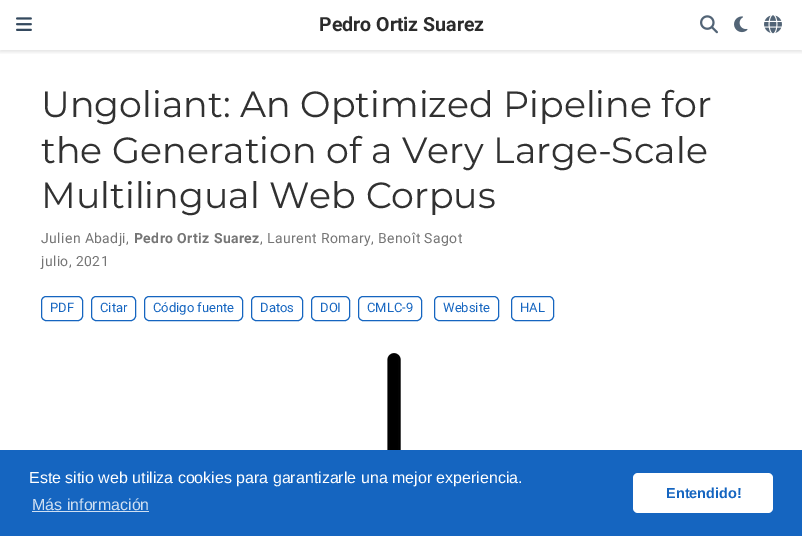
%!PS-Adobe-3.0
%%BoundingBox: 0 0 802 536
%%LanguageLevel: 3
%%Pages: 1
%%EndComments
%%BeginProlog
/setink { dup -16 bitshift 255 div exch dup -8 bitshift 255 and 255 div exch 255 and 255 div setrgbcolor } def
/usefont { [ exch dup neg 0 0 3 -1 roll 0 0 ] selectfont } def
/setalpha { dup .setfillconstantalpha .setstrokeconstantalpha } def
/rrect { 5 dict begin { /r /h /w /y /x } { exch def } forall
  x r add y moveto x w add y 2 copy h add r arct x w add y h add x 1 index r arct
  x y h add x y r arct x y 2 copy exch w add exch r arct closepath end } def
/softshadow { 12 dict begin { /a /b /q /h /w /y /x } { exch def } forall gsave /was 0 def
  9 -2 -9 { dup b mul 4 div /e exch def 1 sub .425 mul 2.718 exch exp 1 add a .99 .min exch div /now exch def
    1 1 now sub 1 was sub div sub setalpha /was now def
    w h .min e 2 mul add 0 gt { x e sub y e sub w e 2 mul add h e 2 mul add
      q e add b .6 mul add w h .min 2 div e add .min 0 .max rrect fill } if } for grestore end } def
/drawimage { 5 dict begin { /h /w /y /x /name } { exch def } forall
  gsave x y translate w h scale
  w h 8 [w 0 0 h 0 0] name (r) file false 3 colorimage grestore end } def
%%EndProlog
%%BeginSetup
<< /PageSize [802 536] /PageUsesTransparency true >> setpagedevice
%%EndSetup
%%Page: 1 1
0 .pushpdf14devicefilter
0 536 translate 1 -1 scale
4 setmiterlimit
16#FFFFFF setink
0 0 802 536 rectfill
gsave
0 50 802 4 rectclip
16#000000 setink
0 2 802 50 0 2 0.11 softshadow
grestore
(img1.raw) 16 17 16 14 drawimage
/Roboto-Bold 19.5 usefont
16#2B2B2B setink
319 31 moveto (Pedro Ortiz Suarez) show
(img2.raw) 700 15 18 19 drawimage
(img3.raw) 734 16 14 17 drawimage
(img4.raw) 764 15 18 19 drawimage
/Montserrat-Regular 36.4 usefont
16#313131 setink
[
    [(Ungoliant: An Optimized Pipeline for) 41 117]
    [(the Generation of a Very Large-Scale) 41 163]
    [(Multilingual Web Corpus) 41 208]
] { aload pop moveto show } forall
/Roboto-Regular 14 usefont
16#757575 setink
41 243 moveto 0.4 0 (Julien Abadji,) ashow
/Roboto-Bold 14 usefont
134 243 moveto 0.4 0 (Pedro Ortiz Suarez) ashow
/Roboto-Regular 14 usefont
260 243 moveto 0.4 0 (, Laurent Romary, Benoît Sagot) ashow
41 266 moveto 0.4 0 (julio, 2021) ashow
16#1565C0 setink
41.5 296.5 41 24 4.5 rrect stroke
/Roboto-Regular 13 usefont
50 312 moveto (PDF) show
91.5 296.5 44 24 4.5 rrect stroke
100 312 moveto (Citar) show
144.5 296.5 98 24 4.5 rrect stroke
153 312 moveto (Código fuente) show
251.5 296.5 51 24 4.5 rrect stroke
260 312 moveto (Datos) show
311.5 296.5 38 24 4.5 rrect stroke
320 312 moveto (DOI) show
358.5 296.5 63 24 4.5 rrect stroke
367 312 moveto (CMLC-9) show
434.5 296.5 64 24 4.5 rrect stroke
443 312 moveto (Website) show
511.5 296.5 42 24 4.5 rrect stroke
520 312 moveto (HAL) show
(img5.raw) 387 353 14 97 drawimage
0 450 802 86 rectfill
/LiberationSans-Regular 16 usefont
16#FFFFFF setink
29 483 moveto (Este sitio web utiliza cookies para garantizarle una mejor experiencia.) show
16#D0E0F2 setink
32 510 moveto (Más información) show
32 511 117 1 rectfill
16#FFFFFF setink
633 473 140 40 5 rrect fill
/LiberationSans-Bold 14.5 usefont
16#1565C0 setink
666 498 moveto (Entendido!) show
.poppdf14devicefilter showpage
%%EOF
